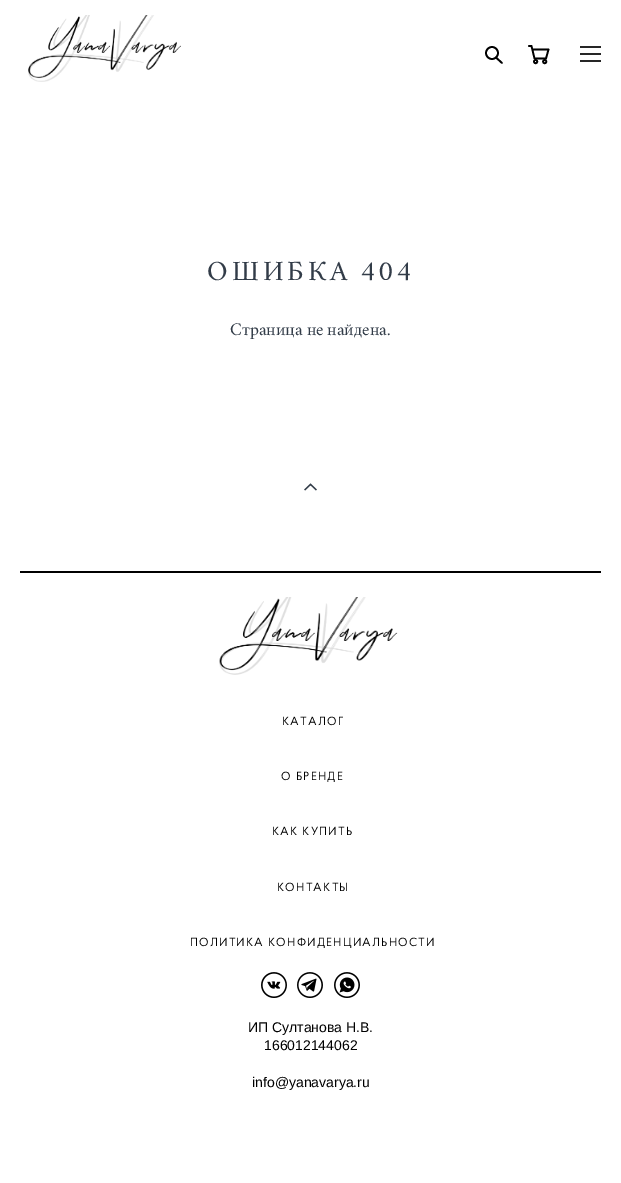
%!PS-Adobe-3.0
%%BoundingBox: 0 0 621 1183
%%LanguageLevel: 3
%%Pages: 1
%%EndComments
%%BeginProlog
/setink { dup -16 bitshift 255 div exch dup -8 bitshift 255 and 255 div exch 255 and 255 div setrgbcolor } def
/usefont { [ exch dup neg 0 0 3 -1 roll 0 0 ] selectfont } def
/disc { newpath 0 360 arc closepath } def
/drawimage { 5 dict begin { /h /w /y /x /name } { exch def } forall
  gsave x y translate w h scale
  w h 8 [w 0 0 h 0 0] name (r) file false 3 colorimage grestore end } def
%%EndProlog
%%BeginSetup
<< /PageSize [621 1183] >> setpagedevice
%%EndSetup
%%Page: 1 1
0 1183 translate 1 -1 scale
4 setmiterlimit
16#FFFFFF setink
0 0 621 1183 rectfill
(img1.raw) 28 15 153 67 drawimage
16#000000 setink
1.7 setlinewidth
492 53 6 disc stroke
1 setlinecap
1 setlinejoin
496 57.5 moveto 502 63 lineto stroke
529 46 moveto 531.5 46 lineto 534.5 58.5 lineto 546 58.5 lineto 548.5 49.5 lineto 533 49.5 lineto stroke
0 setlinecap
0 setlinejoin
535.6 61.6 1.6 disc stroke
544.7 61.6 1.6 disc stroke
[
    [580 46 21 2 16#262626]
    [580 53 21 2 16#262626]
    [580 60 21 2 16#262626]
] { aload pop setink rectfill } forall
/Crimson-Regular 27.5 usefont
16#323C48 setink
207 280 moveto 4.1 0 (ОШИБКА 404) ashow
/Crimson-Regular 17.5 usefont
230 335 moveto (Страница не найдена.) show
(img2.raw) 304 483 13 8 drawimage
16#000000 setink
20 571 581 2 rectfill
(img3.raw) 219 597 179 78 drawimage
/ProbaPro-Regular 11.8 usefont
282 725 moveto 1.2 0 (КАТАЛОГ) ashow
281 780 moveto 1.2 0 (О БРЕНДЕ) ashow
272 835 moveto 1.2 0 (КАК КУПИТЬ) ashow
277 891 moveto 1.2 0 (КОНТАКТЫ) ashow
190 946 moveto 1.2 0 (ПОЛИТИКА КОНФИДЕНЦИАЛЬНОСТИ) ashow
(img4.raw) 261 972 26 26 drawimage
(img5.raw) 297 972 26 26 drawimage
(img6.raw) 334 972 26 26 drawimage
/LiberationSans-Regular 14 usefont
[
    [(ИП Султанова Н.В.) 248 1032]
    [(166012144062) 264 1050]
    [(info@yanavarya.ru) 252 1087]
] { aload pop moveto show } forall
showpage
%%EOF
